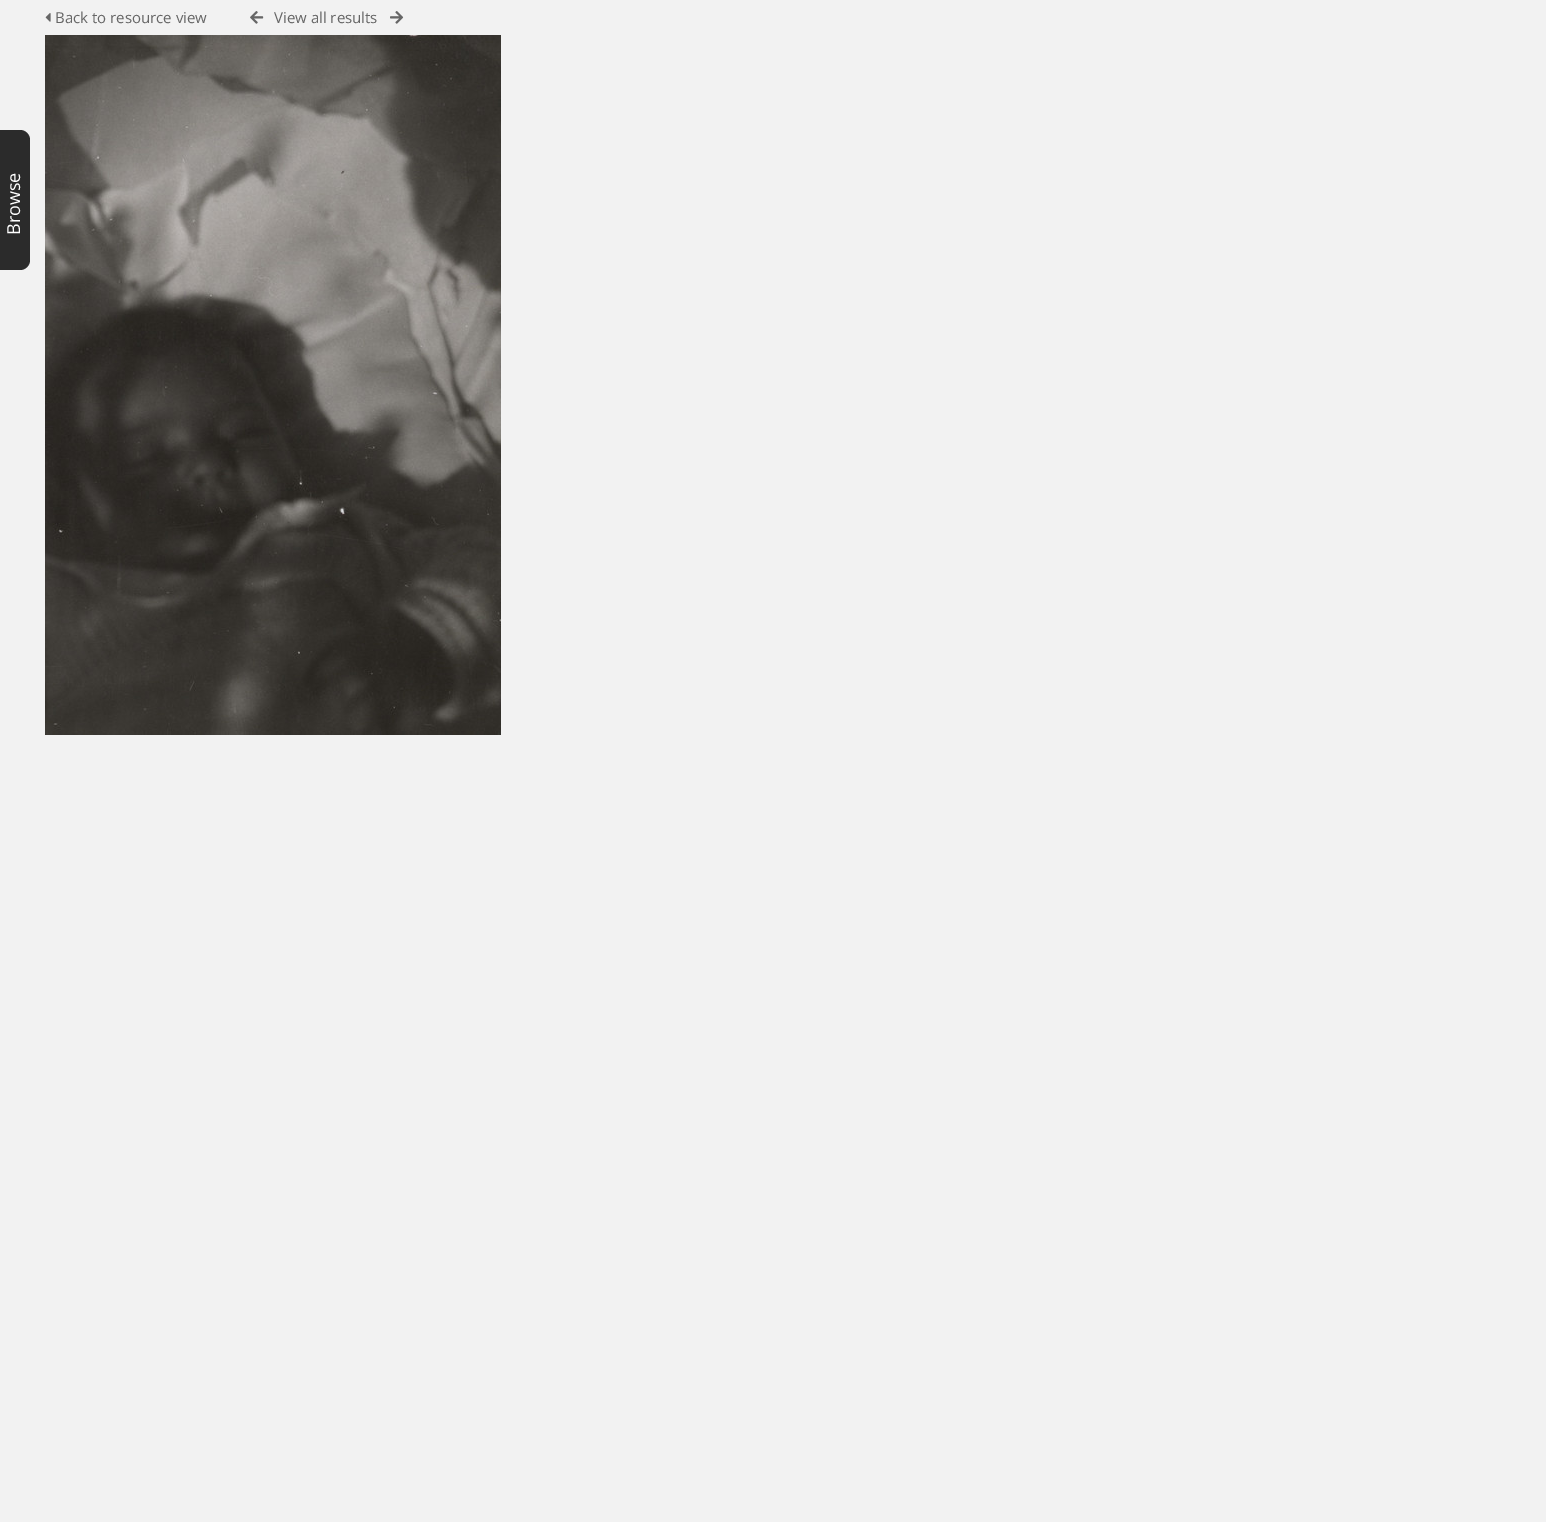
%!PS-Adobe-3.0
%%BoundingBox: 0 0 1546 1522
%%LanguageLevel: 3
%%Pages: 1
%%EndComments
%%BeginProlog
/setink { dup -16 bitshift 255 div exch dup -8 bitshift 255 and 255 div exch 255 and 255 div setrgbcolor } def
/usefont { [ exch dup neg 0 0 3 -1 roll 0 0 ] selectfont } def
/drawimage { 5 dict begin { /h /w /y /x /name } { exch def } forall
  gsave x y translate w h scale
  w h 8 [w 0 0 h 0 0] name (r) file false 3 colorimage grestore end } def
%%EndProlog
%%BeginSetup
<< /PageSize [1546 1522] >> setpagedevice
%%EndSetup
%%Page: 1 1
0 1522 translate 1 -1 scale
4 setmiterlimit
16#F2F2F2 setink
0 0 1546 1522 rectfill
(img1.raw) 45 13 6 9 drawimage
/OpenSans-Regular 15 usefont
16#666666 setink
55 23 moveto (Back to resource view) show
(img2.raw) 250 11 14 13 drawimage
274 23 moveto (View all results) show
(img3.raw) 390 11 14 13 drawimage
(img4.raw) 45 35 456 700 drawimage
16#2B2B2B setink
0 130 moveto 20 130 lineto 25.5 130 30 134.5 30 140 curveto 30 260 lineto 30 265.5 25.5 270 20 270 curveto 0 270 lineto closepath fill
/OpenSans-Regular 18 usefont
16#FFFFFF setink
gsave 20 235 translate -90 rotate 0 0 moveto (Browse) show grestore
showpage
%%EOF
